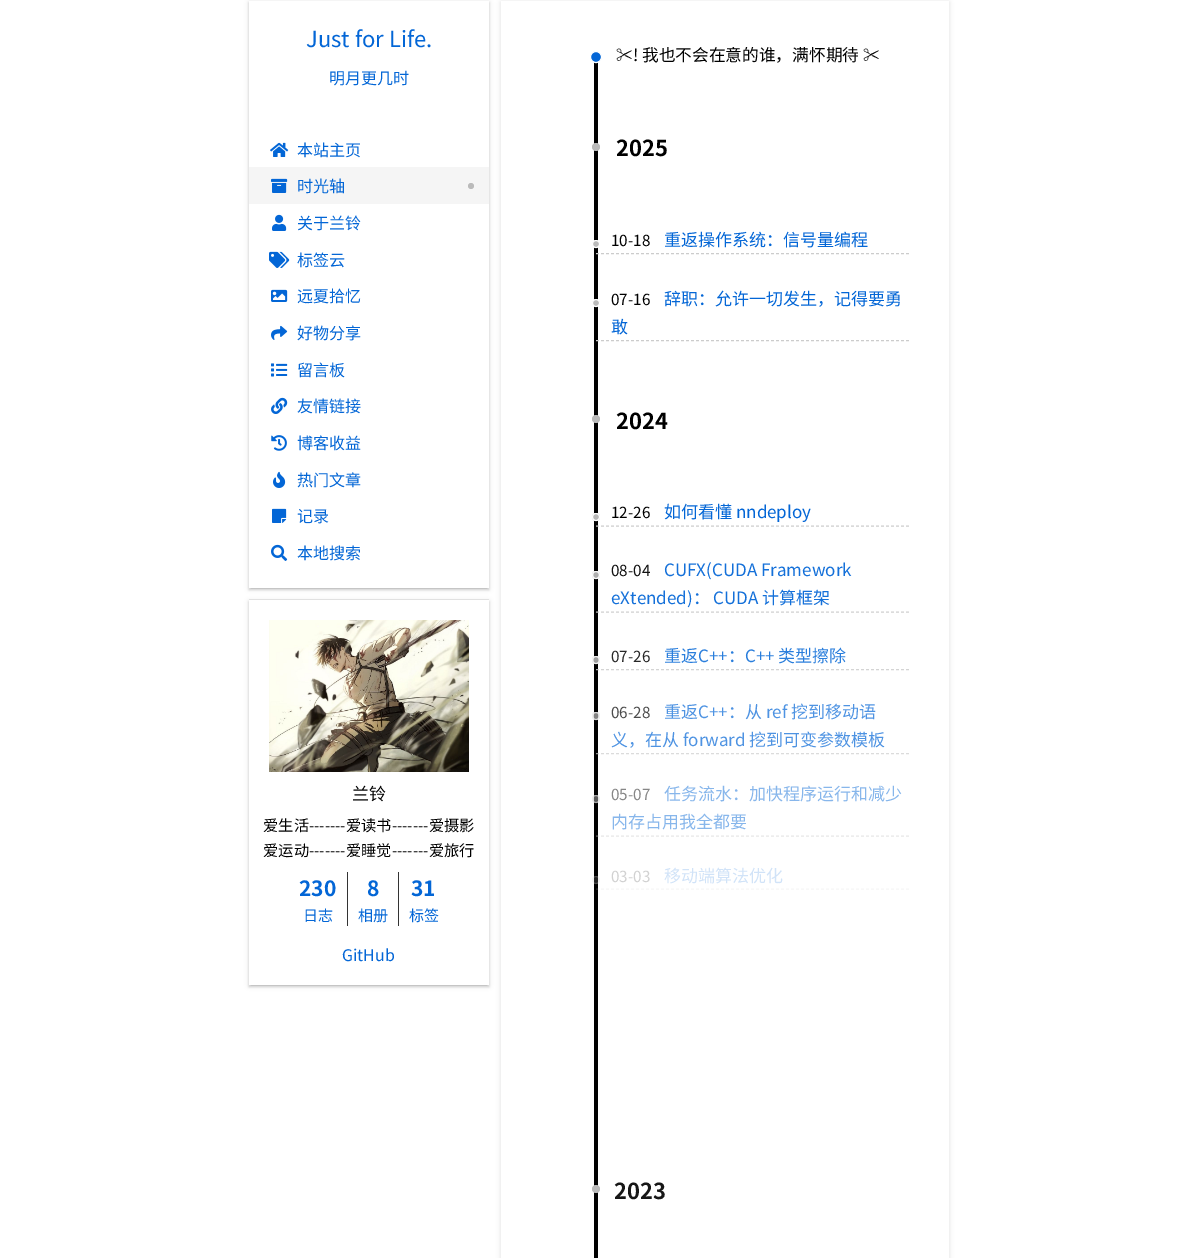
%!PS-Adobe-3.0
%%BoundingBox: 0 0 1198 1258
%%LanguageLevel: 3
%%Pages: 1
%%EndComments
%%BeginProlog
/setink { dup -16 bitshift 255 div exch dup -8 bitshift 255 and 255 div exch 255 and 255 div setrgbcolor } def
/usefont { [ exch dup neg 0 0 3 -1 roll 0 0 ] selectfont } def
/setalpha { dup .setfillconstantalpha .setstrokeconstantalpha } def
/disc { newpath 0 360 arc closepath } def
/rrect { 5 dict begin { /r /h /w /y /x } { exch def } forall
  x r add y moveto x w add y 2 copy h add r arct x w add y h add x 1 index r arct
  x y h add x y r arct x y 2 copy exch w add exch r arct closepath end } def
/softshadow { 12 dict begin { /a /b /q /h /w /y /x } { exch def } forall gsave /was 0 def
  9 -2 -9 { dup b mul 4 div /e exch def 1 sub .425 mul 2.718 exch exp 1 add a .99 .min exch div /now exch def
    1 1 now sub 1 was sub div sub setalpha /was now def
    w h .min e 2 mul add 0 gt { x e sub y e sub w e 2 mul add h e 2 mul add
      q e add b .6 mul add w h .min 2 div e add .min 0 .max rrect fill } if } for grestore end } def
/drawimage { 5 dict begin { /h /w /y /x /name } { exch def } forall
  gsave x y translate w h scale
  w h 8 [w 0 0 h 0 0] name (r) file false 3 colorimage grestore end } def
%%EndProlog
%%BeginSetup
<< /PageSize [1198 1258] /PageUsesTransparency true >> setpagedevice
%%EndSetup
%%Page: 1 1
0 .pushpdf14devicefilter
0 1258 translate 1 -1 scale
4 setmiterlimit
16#FFFFFF setink
0 0 1198 1258 rectfill
gsave
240 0 moveto 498 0 lineto 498 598 lineto 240 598 lineto closepath 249 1 moveto 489 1 lineto 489 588 lineto 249 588 lineto closepath eoclip newpath
16#000000 setink
249 2 240 587 0 2.5 0.12 softshadow
grestore
gsave
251 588 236 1 rectclip
16#000000 setink
251 6 236 583 0 0.5 0.06 softshadow
grestore
gsave
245 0 moveto 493 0 lineto 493 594 lineto 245 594 lineto closepath 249 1 moveto 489 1 lineto 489 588 lineto 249 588 lineto closepath eoclip newpath
16#000000 setink
249 3 240 587 0 1 0.12 softshadow
grestore
/NotoSansCJKSC-Regular 22 usefont
16#0366D6 setink
306 47 moveto (Just for Life.) show
/NotoSansCJKSC-Regular 16 usefont
329 84 moveto (明月更几时) show
(img1.raw) 270 142 19 15 drawimage
297 156 moveto (本站主页) show
16#F5F5F5 setink
249 167 240 37 rectfill
(img2.raw) 271 178 17 15 drawimage
16#0366D6 setink
297 192 moveto (时光轴) show
16#BBBBBB setink
471 186 3 disc fill
(img3.raw) 272 214 15 17 drawimage
16#0366D6 setink
297 229 moveto (关于兰铃) show
(img4.raw) 269 251 21 17 drawimage
297 266 moveto (标签云) show
(img5.raw) 271 289 17 13 drawimage
297 302 moveto (远夏拾忆) show
(img6.raw) 271 325 17 15 drawimage
297 339 moveto (好物分享) show
(img7.raw) 271 363 17 14 drawimage
297 376 moveto (留言板) show
(img8.raw) 271 397 17 17 drawimage
297 412 moveto (友情链接) show
(img9.raw) 271 435 16 16 drawimage
297 449 moveto (博客收益) show
(img10.raw) 273 471 13 17 drawimage
297 486 moveto (热门文章) show
(img11.raw) 272 508 15 15 drawimage
297 522 moveto (记录) show
(img12.raw) 271 544 17 17 drawimage
297 559 moveto (本地搜索) show
gsave
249 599 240 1 rectclip
16#000000 setink
249 599 240 385 0 0.5 0.09 softshadow
grestore
gsave
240 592 moveto 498 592 lineto 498 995 lineto 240 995 lineto closepath 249 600 moveto 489 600 lineto 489 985 lineto 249 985 lineto closepath eoclip newpath
16#000000 setink
249 601 240 385 0 2.5 0.12 softshadow
grestore
gsave
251 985 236 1 rectclip
16#000000 setink
251 605 236 381 0 0.5 0.06 softshadow
grestore
gsave
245 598 moveto 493 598 lineto 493 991 lineto 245 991 lineto closepath 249 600 moveto 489 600 lineto 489 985 lineto 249 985 lineto closepath eoclip newpath
16#000000 setink
249 602 240 385 0 1 0.12 softshadow
grestore
(img13.raw) 269 620 200 152 drawimage
/NotoSansCJKSC-Regular 17 usefont
16#000000 setink
352 800 moveto (兰铃) show
/NotoSansCJKSC-Regular 15.25 usefont
263 831 moveto (爱生活-------爱读书-------爱摄影) show
263 856 moveto (爱运动-------爱睡觉-------爱旅行) show
/NotoSansCJKSC-Bold 21 usefont
16#0366D6 setink
299 896 moveto (230) show
/NotoSansCJKSC-Regular 15 usefont
303 921 moveto (日志) show
16#333333 setink
347 872 1 54 rectfill
/NotoSansCJKSC-Bold 21 usefont
16#0366D6 setink
367 896 moveto (8) show
/NotoSansCJKSC-Regular 15 usefont
358 921 moveto (相册) show
16#333333 setink
398 872 1 54 rectfill
/NotoSansCJKSC-Bold 21 usefont
16#0366D6 setink
411 896 moveto (31) show
/NotoSansCJKSC-Regular 15 usefont
409 921 moveto (标签) show
/NotoSansCJKSC-Regular 16 usefont
342 961 moveto (GitHub) show
gsave
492 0 moveto 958 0 lineto 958 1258 lineto 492 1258 lineto closepath 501 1 moveto 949 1 lineto 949 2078 lineto 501 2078 lineto closepath eoclip newpath
16#000000 setink
501 2 448 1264 0 2.5 0.12 softshadow
grestore
16#000000 setink
594 62 4 1196 rectfill
16#0366D6 setink
596 57 5.5 disc gsave fill grestore
16#FFFFFF setink
stroke
/NotoSansCJKSC-Regular 16.7 usefont
16#000000 setink
616 61 moveto (✂! 我也不会在意的谁，满怀期待 ✂) show
16#BBBBBB setink
596 147 4 disc fill
/NotoSansCJKSC-Bold 22 usefont
16#000000 setink
616 156 moveto (2025) show
16#CCCCCC setink
[3 2] 0 setdash
596 253.5 moveto 909 253.5 lineto stroke
16#BBBBBB setink
596 244 3.5 disc gsave fill grestore
16#FFFFFF setink
[] 0 setdash
stroke
/NotoSansCJKSC-Regular 15.25 usefont
16#000000 setink
611 246 moveto (10-18) show
/NotoSansCJKSC-Regular 17 usefont
16#0366D6 setink
664 246 moveto (重返操作系统：信号量编程) show
16#CCCCCC setink
[3 2] 0 setdash
596 340.5 moveto 909 340.5 lineto stroke
16#BBBBBB setink
596 303 3.5 disc gsave fill grestore
16#FFFFFF setink
[] 0 setdash
stroke
/NotoSansCJKSC-Regular 15.25 usefont
16#000000 setink
611 305 moveto (07-16) show
/NotoSansCJKSC-Regular 17 usefont
16#0366D6 setink
664 305 moveto (辞职：允许一切发生，记得要勇) show
611 333 moveto (敢) show
16#BBBBBB setink
596 419 4 disc fill
/NotoSansCJKSC-Bold 22 usefont
16#000000 setink
616 429 moveto (2024) show
0.98 setalpha
16#CCCCCC setink
[3 2] 0 setdash
596 526 moveto 909 526 lineto stroke
16#BBBBBB setink
596 517 4 disc fill
16#FFFFFF setink
[] 0 setdash
596 517 3.5 disc stroke
/NotoSansCJKSC-Regular 15.25 usefont
1 setalpha
16#000000 setink
611 518 moveto (12-26) show
/NotoSansCJKSC-Regular 17 usefont
16#0366D6 setink
664 518 moveto (如何看懂 nndeploy) show
0.93 setalpha
16#CCCCCC setink
[3 2] 0 setdash
596 612 moveto 909 612 lineto stroke
16#BBBBBB setink
596 575 4 disc fill
16#FFFFFF setink
[] 0 setdash
596 575 3.5 disc stroke
/NotoSansCJKSC-Regular 15.25 usefont
1 setalpha
16#111111 setink
611 576 moveto (08-04) show
/NotoSansCJKSC-Regular 17 usefont
16#1470D9 setink
664 576 moveto (CUFX\(CUDA Framework) show
611 604 moveto (eXtended\)： CUDA 计算框架) show
0.85 setalpha
16#CCCCCC setink
[3 2] 0 setdash
596 669.5 moveto 909 669.5 lineto stroke
16#BBBBBB setink
596 660 4 disc fill
16#FFFFFF setink
[] 0 setdash
596 660 3.5 disc stroke
/NotoSansCJKSC-Regular 15.25 usefont
1 setalpha
16#272727 setink
611 662 moveto (07-26) show
/NotoSansCJKSC-Regular 17 usefont
16#2A7EDC setink
664 662 moveto (重返C++：C++ 类型擦除) show
0.7 setalpha
16#CCCCCC setink
[3 2] 0 setdash
596 753.5 moveto 909 753.5 lineto stroke
16#BBBBBB setink
596 716 4 disc fill
16#FFFFFF setink
[] 0 setdash
596 716 3.5 disc stroke
/NotoSansCJKSC-Regular 15.25 usefont
1 setalpha
16#4C4C4C setink
611 718 moveto (06-28) show
/NotoSansCJKSC-Regular 17 usefont
16#4E93E2 setink
664 718 moveto (重返C++：从 ref 挖到移动语) show
611 746 moveto (义，在从 forward 挖到可变参数模板) show
0.48 setalpha
16#CCCCCC setink
[3 2] 0 setdash
596 836 moveto 909 836 lineto stroke
16#BBBBBB setink
596 799 4 disc fill
16#FFFFFF setink
[] 0 setdash
596 799 3.5 disc stroke
/NotoSansCJKSC-Regular 15.25 usefont
1 setalpha
16#868686 setink
611 800 moveto (05-07) show
/NotoSansCJKSC-Regular 17 usefont
16#87B6EB setink
664 800 moveto (任务流水：加快程序运行和减少) show
611 828 moveto (内存占用我全都要) show
0.18 setalpha
16#CCCCCC setink
[3 2] 0 setdash
596 889 moveto 909 889 lineto stroke
16#BBBBBB setink
596 880 4 disc fill
16#FFFFFF setink
[] 0 setdash
596 880 3.5 disc stroke
/NotoSansCJKSC-Regular 15.25 usefont
1 setalpha
16#D1D1D1 setink
611 882 moveto (03-03) show
/NotoSansCJKSC-Regular 17 usefont
16#D1E3F8 setink
664 882 moveto (移动端算法优化) show
16#BBBBBB setink
596 1189 4 disc fill
/NotoSansCJKSC-Bold 22 usefont
16#171717 setink
614 1199 moveto (2023) show
.poppdf14devicefilter showpage
%%EOF
